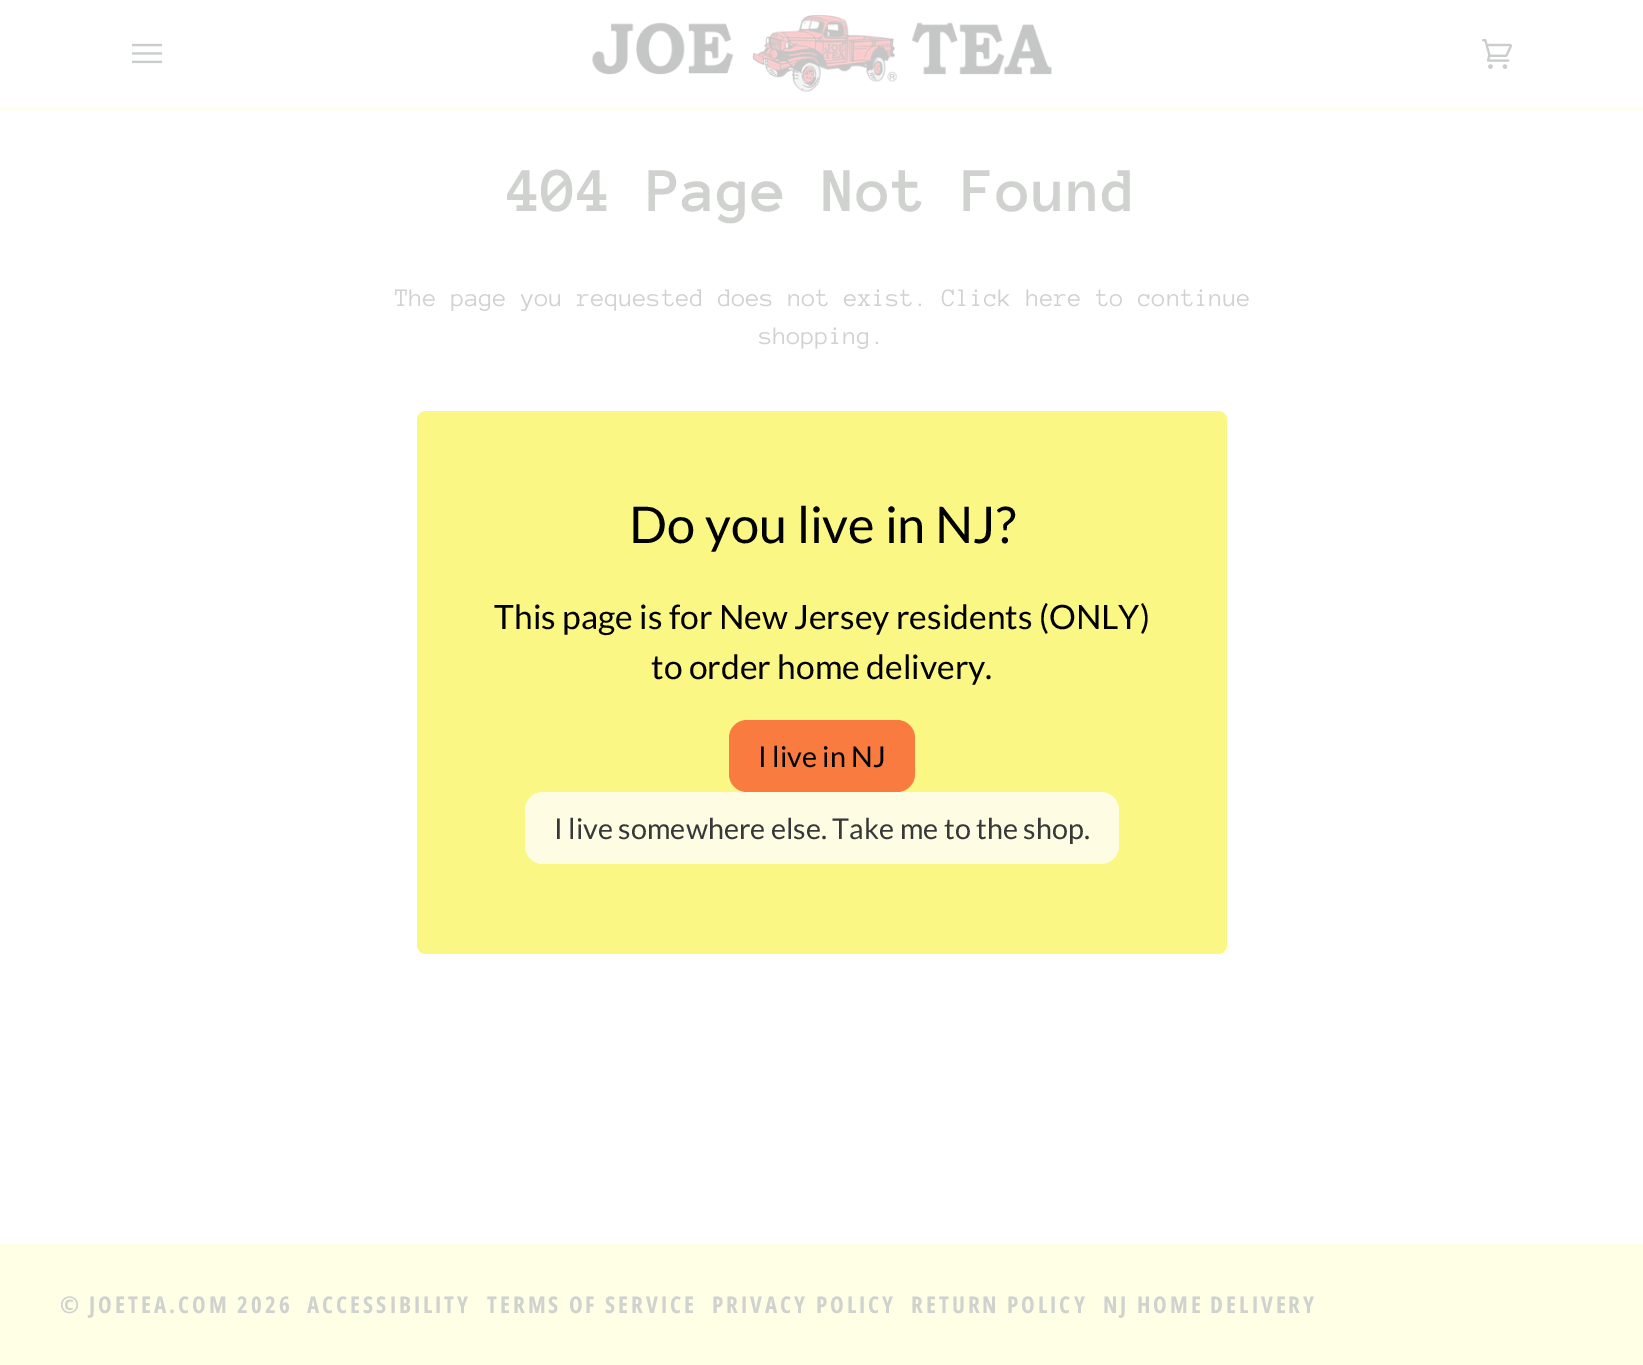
%!PS-Adobe-3.0
%%BoundingBox: 0 0 1643 1365
%%LanguageLevel: 3
%%Pages: 1
%%EndComments
%%BeginProlog
/setink { dup -16 bitshift 255 div exch dup -8 bitshift 255 and 255 div exch 255 and 255 div setrgbcolor } def
/usefont { [ exch dup neg 0 0 3 -1 roll 0 0 ] selectfont } def
/rrect { 5 dict begin { /r /h /w /y /x } { exch def } forall
  x r add y moveto x w add y 2 copy h add r arct x w add y h add x 1 index r arct
  x y h add x y r arct x y 2 copy exch w add exch r arct closepath end } def
/drawimage { 5 dict begin { /h /w /y /x /name } { exch def } forall
  gsave x y translate w h scale
  w h 8 [w 0 0 h 0 0] name (r) file false 3 colorimage grestore end } def
%%EndProlog
%%BeginSetup
<< /PageSize [1643 1365] >> setpagedevice
%%EndSetup
%%Page: 1 1
0 1365 translate 1 -1 scale
4 setmiterlimit
16#FFFFFF setink
0 0 1643 1365 rectfill
16#FFFFE6 setink
0 107 1643 2 rectfill
(img1.raw) 132 43 30 21 drawimage
(img2.raw) 592 15 460 77 drawimage
(img3.raw) 1482 39 30 30 drawimage
/AnonymousPro-Bold 64.1 usefont
16#D0D2CF setink
507 211 moveto (404 Page Not Found) show
/AnonymousPro-Regular 25.7 usefont
395 306 moveto (The page you requested does not exist. Click here to continue) show
759 344 moveto (shopping.) show
16#FAF784 setink
417 411 810 543 9 rrect fill
/Lato-Regular 50.5 usefont
16#000000 setink
629 543 moveto (Do you live in NJ?) show
/Lato-Regular 33.6 usefont
494 629 moveto (This page is for New Jersey residents \(ONLY\)) show
651 679 moveto (to order home delivery.) show
16#F97B40 setink
729 720 186 72 18 rrect fill
/Lato-Regular 28.75 usefont
16#000000 setink
758 767 moveto (I live in NJ) show
16#FEFDE3 setink
525 792 594 72 18 rrect fill
16#383838 setink
554 839 moveto (I live somewhere else. Take me to the shop.) show
16#FFFFE6 setink
0 1244 1643 121 rectfill
/OpenSansCondensed-Bold 23.1 usefont
16#D0D2CF setink
60 1313 moveto 3 0 (© JOETEA.COM) ashow
237 1313 moveto 3 0 (2026) ashow
307 1313 moveto 3 0 (ACCESSIBILITY) ashow
487 1313 moveto 3 0 (TERMS OF SERVICE) ashow
712 1313 moveto 3 0 (PRIVACY POLICY) ashow
911 1313 moveto 3 0 (RETURN POLICY) ashow
1103 1313 moveto 3 0 (NJ HOME DELIVERY) ashow
showpage
%%EOF
